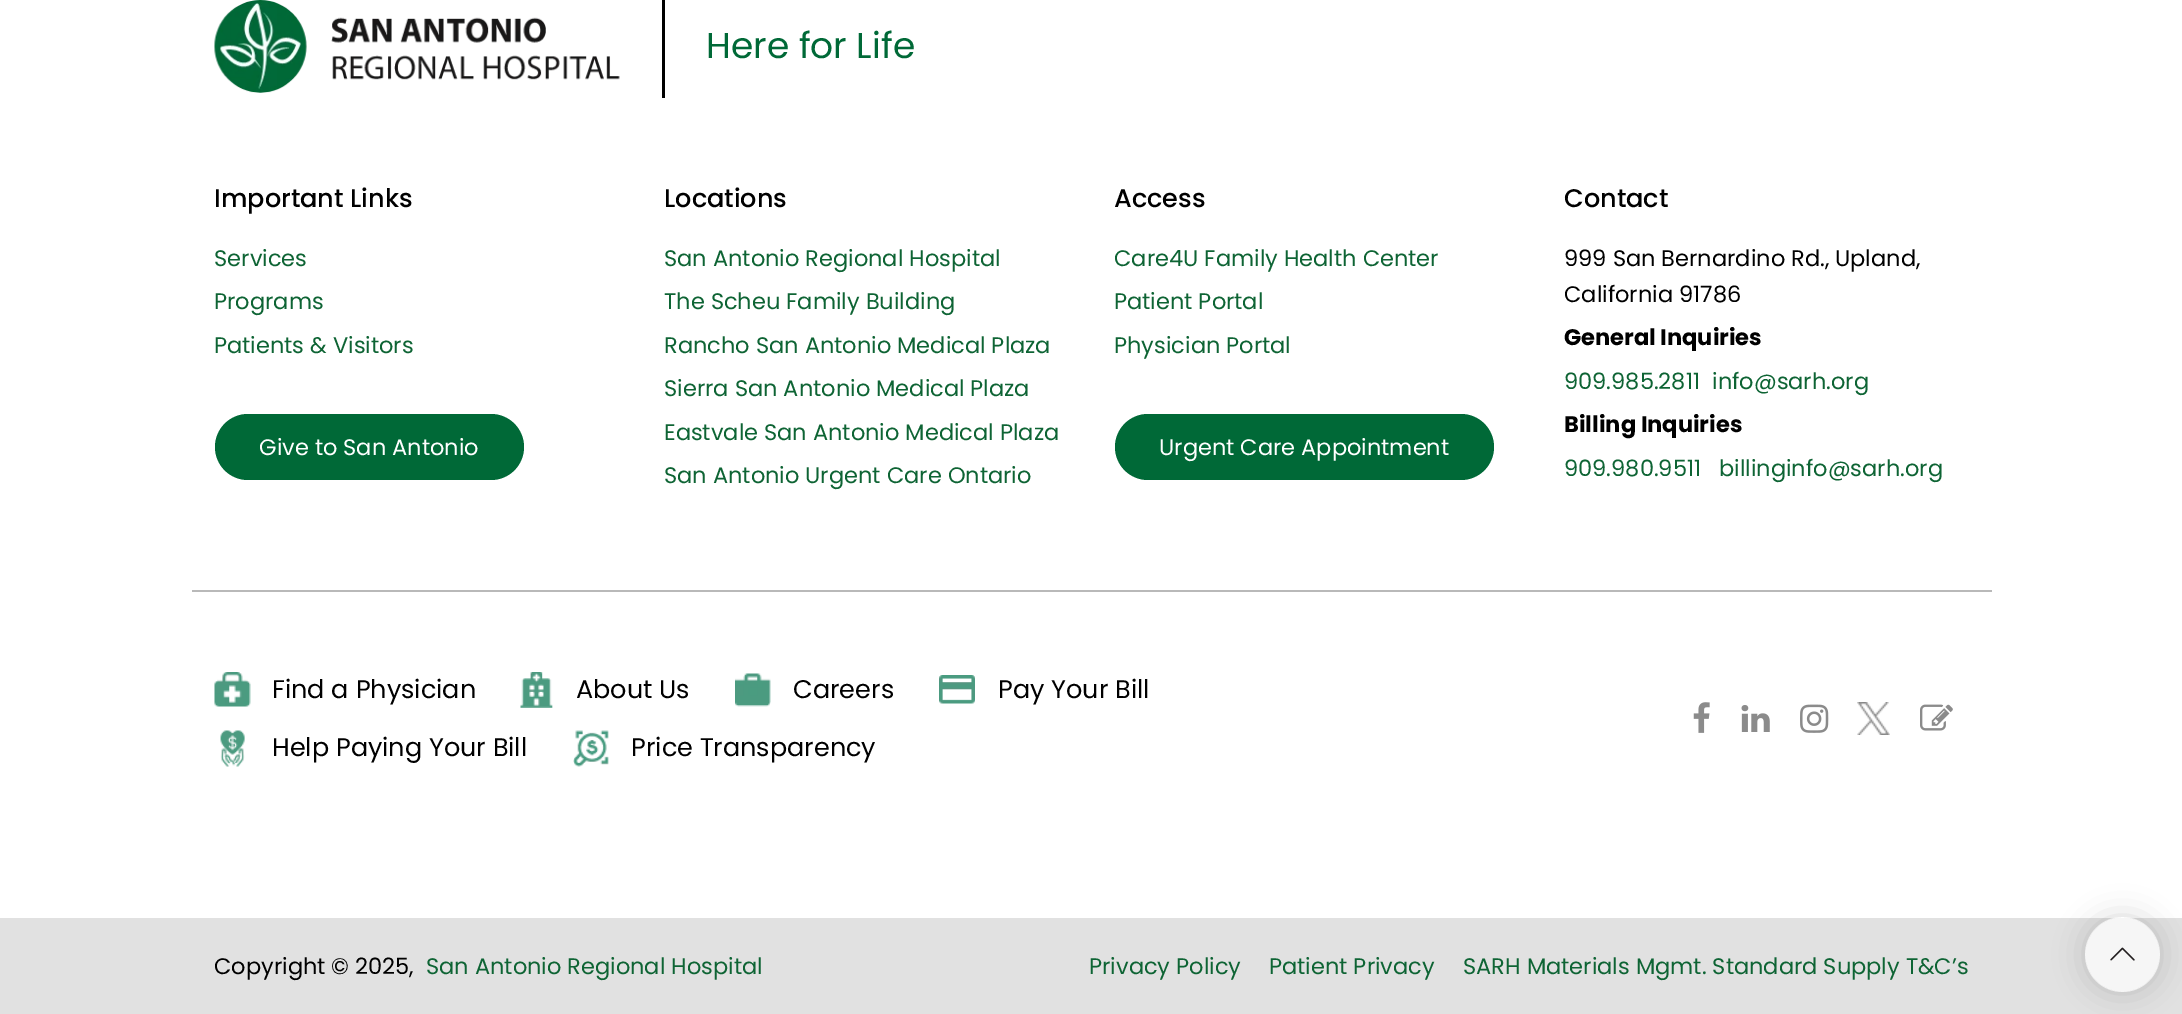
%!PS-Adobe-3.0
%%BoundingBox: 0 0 2182 1014
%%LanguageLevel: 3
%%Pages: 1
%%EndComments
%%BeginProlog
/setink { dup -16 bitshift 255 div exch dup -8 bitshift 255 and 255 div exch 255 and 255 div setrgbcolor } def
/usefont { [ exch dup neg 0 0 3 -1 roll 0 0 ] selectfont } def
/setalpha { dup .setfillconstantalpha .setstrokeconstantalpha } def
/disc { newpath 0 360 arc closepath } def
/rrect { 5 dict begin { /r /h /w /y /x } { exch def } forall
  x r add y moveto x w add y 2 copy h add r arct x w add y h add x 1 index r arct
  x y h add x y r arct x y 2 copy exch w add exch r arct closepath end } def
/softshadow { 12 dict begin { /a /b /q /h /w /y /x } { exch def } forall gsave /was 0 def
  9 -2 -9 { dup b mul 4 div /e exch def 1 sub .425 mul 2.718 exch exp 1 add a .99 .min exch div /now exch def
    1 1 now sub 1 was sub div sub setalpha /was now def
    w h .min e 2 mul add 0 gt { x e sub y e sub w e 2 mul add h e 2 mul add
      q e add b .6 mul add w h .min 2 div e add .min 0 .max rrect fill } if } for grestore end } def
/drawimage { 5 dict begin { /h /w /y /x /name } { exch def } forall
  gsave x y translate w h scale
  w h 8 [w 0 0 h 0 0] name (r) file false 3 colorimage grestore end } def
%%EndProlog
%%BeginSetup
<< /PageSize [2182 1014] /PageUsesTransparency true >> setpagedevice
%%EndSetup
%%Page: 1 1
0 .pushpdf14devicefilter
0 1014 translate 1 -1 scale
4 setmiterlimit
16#FFFFFF setink
0 0 2182 1014 rectfill
(img1.raw) 214 0 406 93 drawimage
16#000000 setink
662 0 3 98 rectfill
/Poppins-Regular 36 usefont
16#006937 setink
706 58 moveto (Here for Life) show
/Poppins-Medium 25.5 usefont
16#000000 setink
214 207 moveto (Important Links) show
/Poppins-Regular 22.5 usefont
16#0E6434 setink
[
    [(Services) 214 266]
    [(Programs) 214 309]
    [(Patients & Visitors) 214 353]
] { aload pop moveto show } forall
16#006937 setink
215 414 309 66 33 rrect fill
16#FFFFFF setink
259 455 moveto (Give to San Antonio) show
/Poppins-Medium 25.5 usefont
16#000000 setink
664 207 moveto (Locations) show
/Poppins-Regular 22.5 usefont
16#0E6434 setink
[
    [(San Antonio Regional Hospital) 664 266]
    [(The Scheu Family Building) 664 309]
    [(Rancho San Antonio Medical Plaza) 664 353]
    [(Sierra San Antonio Medical Plaza) 664 396]
    [(Eastvale San Antonio Medical Plaza) 664 440]
    [(San Antonio Urgent Care Ontario) 664 483]
] { aload pop moveto show } forall
/Poppins-Medium 25.5 usefont
16#000000 setink
1114 207 moveto (Access) show
/Poppins-Regular 22.5 usefont
16#0E6434 setink
[
    [(Care4U Family Health Center) 1114 266]
    [(Patient Portal) 1114 309]
    [(Physician Portal) 1114 353]
] { aload pop moveto show } forall
16#006937 setink
1115 414 379 66 33 rrect fill
16#FFFFFF setink
1159 455 moveto (Urgent Care Appointment) show
/Poppins-Medium 25.5 usefont
16#000000 setink
1564 207 moveto (Contact) show
/Poppins-Regular 22.5 usefont
1564 266 moveto (999 San Bernardino Rd., Upland,) show
1564 302 moveto (California 91786) show
/Poppins-Bold 22.5 usefont
1564 345 moveto (General Inquiries) show
/Poppins-Regular 22.5 usefont
16#0E6434 setink
1564 389 moveto (909.985.2811) show
1712 389 moveto (info@sarh.org) show
/Poppins-Bold 22.5 usefont
16#000000 setink
1564 432 moveto (Billing Inquiries) show
/Poppins-Regular 22.5 usefont
16#0E6434 setink
1564 476 moveto (909.980.9511) show
1719 476 moveto (billinginfo@sarh.org) show
16#B9B9B9 setink
192 590 1800 2 rectfill
(img2.raw) 214 672 37 35 drawimage
/Poppins-Regular 25.5 usefont
16#000000 setink
272 698 moveto (Find a Physician) show
(img3.raw) 520 672 33 36 drawimage
576 698 moveto (About Us) show
(img4.raw) 735 673 36 34 drawimage
793 698 moveto (Careers) show
(img5.raw) 939 675 36 29 drawimage
998 698 moveto (Pay Your Bill) show
(img6.raw) 220 730 25 37 drawimage
272 756 moveto (Help Paying Your Bill) show
(img7.raw) 573 730 36 37 drawimage
631 756 moveto (Price Transparency) show
(img8.raw) 1693 702 17 31 drawimage
(img9.raw) 1741 705 29 27 drawimage
(img10.raw) 1800 704 29 29 drawimage
(img11.raw) 1857 702 33 33 drawimage
(img12.raw) 1920 704 33 27 drawimage
16#E1E1E1 setink
0 918 2182 96 rectfill
/Poppins-Regular 22.5 usefont
16#000000 setink
214 974 moveto (Copyright © 2025,) show
16#0E6434 setink
[
    [(San Antonio Regional Hospital) 426 974]
    [(Privacy Policy) 1089 974]
    [(Patient Privacy) 1269 974]
    [(SARH Materials Mgmt. Standard Supply T&C’s) 1463 974]
] { aload pop moveto show } forall
gsave
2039 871 moveto 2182 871 lineto 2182 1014 lineto 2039 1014 lineto closepath 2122.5 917 moveto 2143 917 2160 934 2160 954.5 curveto 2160 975 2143 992 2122.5 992 curveto 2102 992 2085 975 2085 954.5 curveto 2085 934 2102 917 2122.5 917 curveto closepath eoclip newpath
16#000000 setink
2085 917 75 75 37.5 15 0.15 softshadow
grestore
0.7 setalpha
16#FFFFFF setink
2122.5 954.5 37.5 disc fill
1 setalpha
(img13.raw) 2110 947 25 14 drawimage
.poppdf14devicefilter showpage
%%EOF
